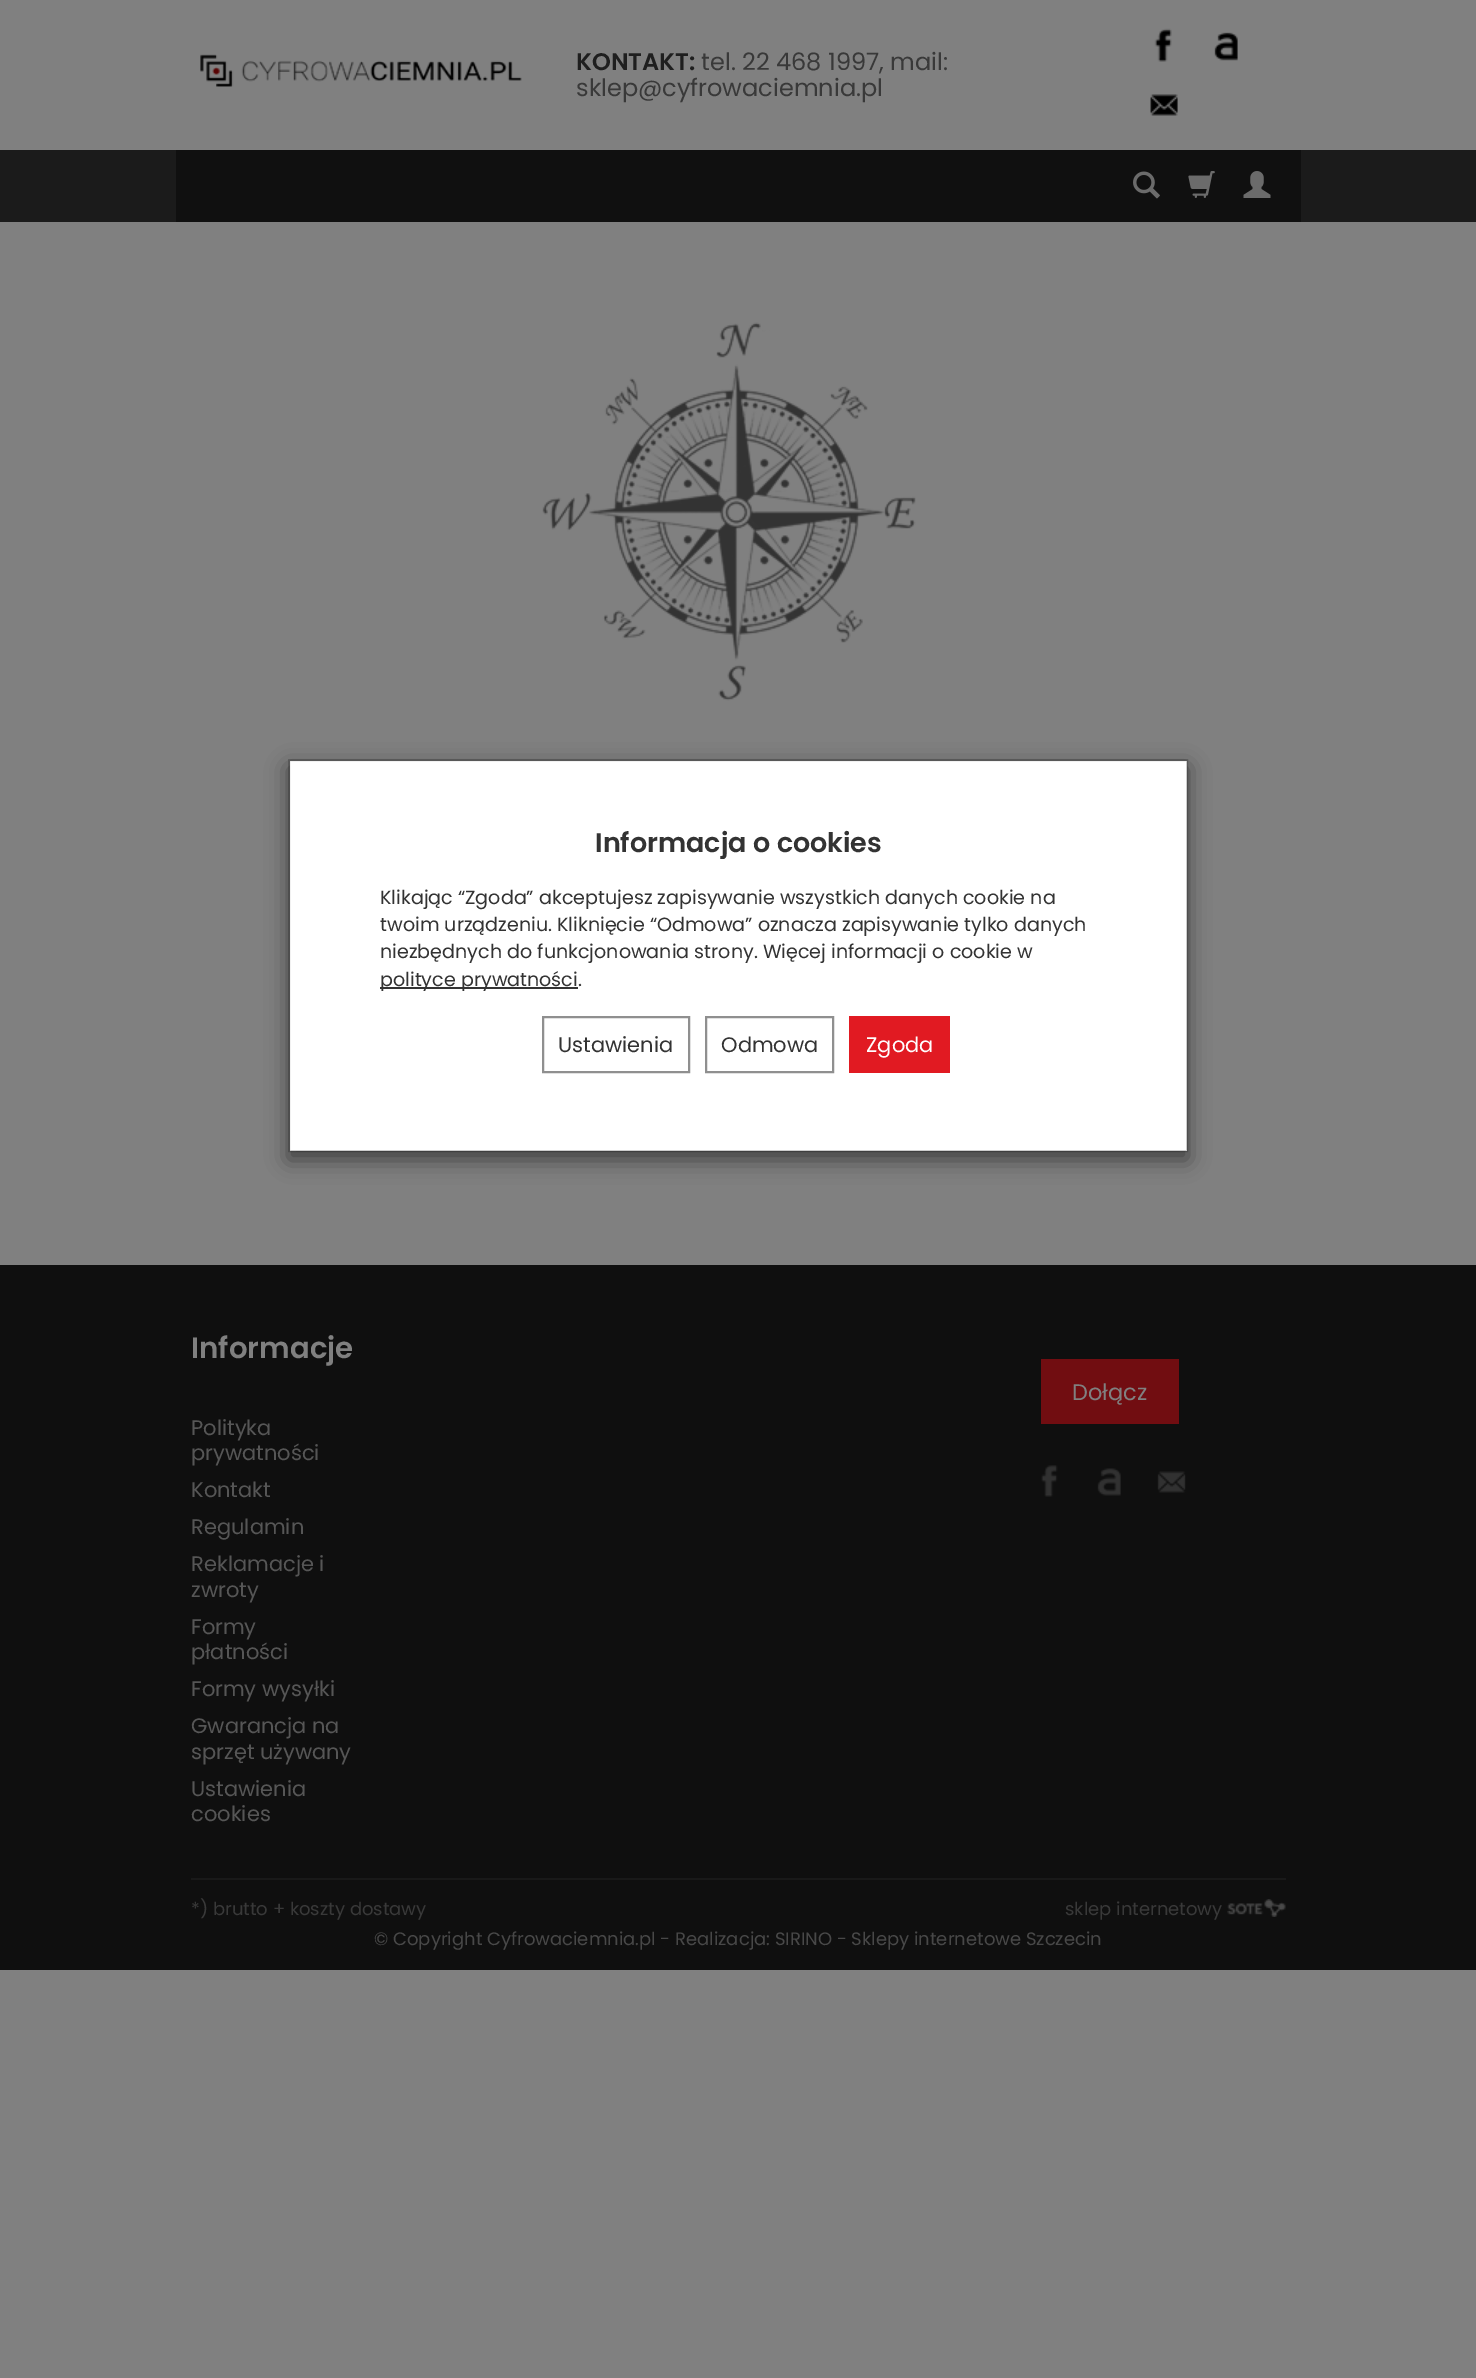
%!PS-Adobe-3.0
%%BoundingBox: 0 0 1476 2378
%%LanguageLevel: 3
%%Pages: 1
%%EndComments
%%BeginProlog
/setink { dup -16 bitshift 255 div exch dup -8 bitshift 255 and 255 div exch 255 and 255 div setrgbcolor } def
/usefont { [ exch dup neg 0 0 3 -1 roll 0 0 ] selectfont } def
/setalpha { dup .setfillconstantalpha .setstrokeconstantalpha } def
/rrect { 5 dict begin { /r /h /w /y /x } { exch def } forall
  x r add y moveto x w add y 2 copy h add r arct x w add y h add x 1 index r arct
  x y h add x y r arct x y 2 copy exch w add exch r arct closepath end } def
/softshadow { 12 dict begin { /a /b /q /h /w /y /x } { exch def } forall gsave /was 0 def
  9 -2 -9 { dup b mul 4 div /e exch def 1 sub .425 mul 2.718 exch exp 1 add a .99 .min exch div /now exch def
    1 1 now sub 1 was sub div sub setalpha /was now def
    w h .min e 2 mul add 0 gt { x e sub y e sub w e 2 mul add h e 2 mul add
      q e add b .6 mul add w h .min 2 div e add .min 0 .max rrect fill } if } for grestore end } def
/drawimage { 5 dict begin { /h /w /y /x /name } { exch def } forall
  gsave x y translate w h scale
  w h 8 [w 0 0 h 0 0] name (r) file false 3 colorimage grestore end } def
%%EndProlog
%%BeginSetup
<< /PageSize [1476 2378] /PageUsesTransparency true >> setpagedevice
%%EndSetup
%%Page: 1 1
0 .pushpdf14devicefilter
0 2378 translate 1 -1 scale
4 setmiterlimit
16#808080 setink
0 0 1476 2378 rectfill
(img1.raw) 200 54 322 33 drawimage
/Poppins-SemiBold 24 usefont
16#1F1F1F setink
576 70 moveto (KONTAKT:) show
/Poppins-Regular 24 usefont
16#393939 setink
701 70 moveto (tel. 22 468 1997, mail:) show
576 96 moveto (sklep@cyfrowaciemnia.pl) show
(img2.raw) 1154 28 18 34 drawimage
(img3.raw) 1214 32 24 29 drawimage
(img4.raw) 1150 94 28 22 drawimage
16#1B1B1B setink
0 150 1476 72 rectfill
16#101010 setink
176 150 1125 72 rectfill
(img5.raw) 1133 171 27 28 drawimage
(img6.raw) 1188 171 27 27 drawimage
(img7.raw) 1243 171 28 27 drawimage
(img8.raw) 542 322 374 379 drawimage
16#000000 setink
288 767 900 393 0 11 0.5 softshadow
16#FFFFFF setink
290 761 897 390 rectfill
0.2 setalpha
16#000000 setink
2 setlinewidth
289 760 898 391 rectstroke
/Poppins-SemiBold 27 usefont
1 setalpha
16#333333 setink
595 852 moveto (Informacja o cookies) show
/Poppins-Regular 19.1 usefont
[
    [(Klikając “Zgoda” akceptujesz zapisywanie wszystkich danych cookie na) 380 904]
    [(twoim urządzeniu. Kliknięcie “Odmowa” oznacza zapisywanie tylko danych) 380 931]
    [(niezbędnych do funkcjonowania strony. Więcej informacji o cookie w) 380 958]
] { aload pop moveto show } forall
380 987 198 2 rectfill
380 986 moveto (polityce prywatności.) show
16#8F8F8F setink
543 1017 146 55 rectstroke
/Poppins-Regular 21 usefont
16#333333 setink
558 1052 moveto (Ustawienia) show
16#8F8F8F setink
706 1017 127 55 rectstroke
16#333333 setink
721 1052 moveto (Odmowa) show
16#E11A22 setink
849 1016 101 57 rectfill
16#FFFFFF setink
866 1052 moveto (Zgoda) show
16#0F0F0F setink
0 1265 1476 705 rectfill
/Poppins-SemiBold 29.25 usefont
16#808080 setink
191 1358 moveto (Informacje) show
/Poppins-Regular 21 usefont
16#565656 setink
[
    [(Polityka) 191 1435]
    [(prywatności) 191 1460]
    [(Kontakt) 191 1497]
    [(Regulamin) 191 1534]
    [(Reklamacje i) 191 1571]
    [(zwroty) 191 1597]
    [(Formy) 191 1634]
    [(płatności) 191 1659]
    [(Formy wysyłki) 191 1696]
    [(Gwarancja na) 191 1733]
    [(sprzęt używany) 191 1759]
    [(Ustawienia) 191 1796]
    [(cookies) 191 1821]
] { aload pop moveto show } forall
16#710D11 setink
1041 1359 138 65 rectfill
/Poppins-Regular 22.5 usefont
16#808080 setink
1072 1400 moveto (Dołącz) show
(img9.raw) 1041 1465 17 32 drawimage
(img10.raw) 1097 1468 24 28 drawimage
(img11.raw) 1157 1471 29 22 drawimage
16#191919 setink
191 1878 1095 2 rectfill
/Poppins-Regular 18 usefont
16#393939 setink
191 1915 moveto (*\) brutto + koszty dostawy) show
1065 1915 moveto (sklep internetowy) show
(img12.raw) 1227 1899 59 18 drawimage
16#484848 setink
374 1945 moveto (© Copyright Cyfrowaciemnia.pl - Realizacja: SIRINO - Sklepy internetowe Szczecin) show
.poppdf14devicefilter showpage
%%EOF
